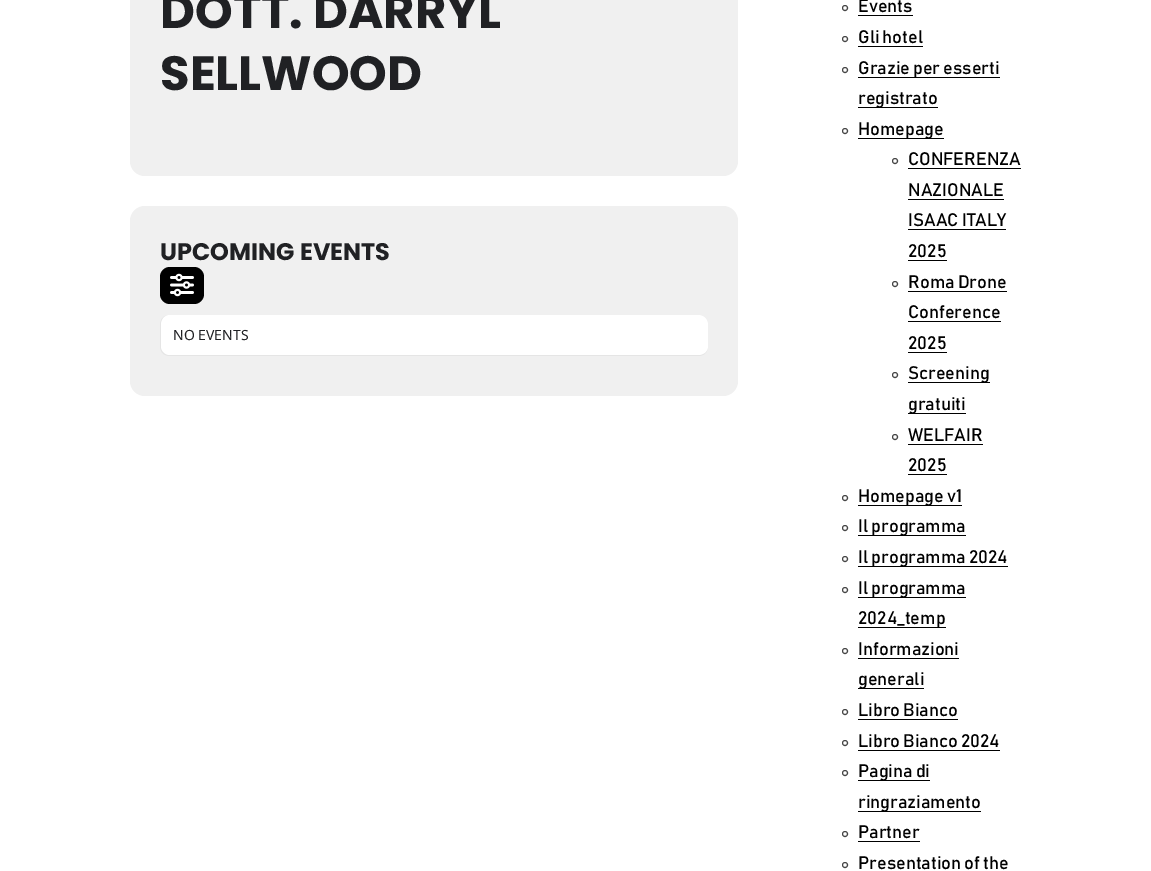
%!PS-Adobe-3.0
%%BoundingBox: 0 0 1151 871
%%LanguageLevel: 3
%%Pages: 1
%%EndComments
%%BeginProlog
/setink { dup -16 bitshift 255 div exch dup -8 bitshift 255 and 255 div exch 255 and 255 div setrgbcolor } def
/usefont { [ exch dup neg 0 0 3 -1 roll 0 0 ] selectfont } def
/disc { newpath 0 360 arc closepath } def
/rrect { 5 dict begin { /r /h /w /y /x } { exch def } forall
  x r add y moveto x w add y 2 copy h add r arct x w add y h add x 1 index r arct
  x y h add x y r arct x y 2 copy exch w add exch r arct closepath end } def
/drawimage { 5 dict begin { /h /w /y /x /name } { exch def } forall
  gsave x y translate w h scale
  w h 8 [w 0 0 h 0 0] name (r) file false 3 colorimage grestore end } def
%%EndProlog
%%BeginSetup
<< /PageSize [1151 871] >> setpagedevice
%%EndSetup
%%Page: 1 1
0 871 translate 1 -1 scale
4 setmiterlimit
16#FFFFFF setink
0 0 1151 871 rectfill
16#F0F0F0 setink
130 -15 608 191 15 rrect fill
/Poppins-Bold 48 usefont
16#202124 setink
160 28 moveto (DOTT. DARRYL) show
160 90 moveto (SELLWOOD) show
16#F0F0F0 setink
130 206 608 190 15 rrect fill
/Poppins-Bold 24 usefont
16#202124 setink
160 260 moveto (UPCOMING EVENTS) show
16#000000 setink
160 267 44 37 10 rrect fill
(img1.raw) 170 273 24 24 drawimage
16#E5E5E5 setink
170 315 moveto 698 315 lineto 704 315 708 319 708 325 curveto 708 346 lineto 708 352 704 356 698 356 curveto 170 356 lineto 164 356 160 352 160 346 curveto 160 325 lineto 160 319 164 315 170 315 curveto closepath 170 315 moveto 698 315 lineto 704 315 708 319 708 325 curveto 708 346 lineto 708 351 704 355 698 355 curveto 170 355 lineto 165 355 161 351 161 346 curveto 161 325 lineto 161 319 165 315 170 315 curveto closepath eofill
16#FFFFFF setink
170 315 moveto 165 315 161 319 161 325 curveto 161 346 lineto 161 351 165 355 170 355 curveto 698 355 lineto 704 355 708 351 708 346 curveto 708 325 lineto 708 319 704 315 698 315 curveto closepath fill
/NotoSans-Regular 14 usefont
16#202124 setink
173 340 moveto (NO EVENTS) show
16#464646 setink
845 8 2.5 disc stroke
/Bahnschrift-Regular 18 usefont
16#000000 setink
858 12 moveto (Events) show
858 15 55 1 rectfill
16#464646 setink
845 39 2.5 disc stroke
16#000000 setink
858 43 moveto (Gli hotel) show
858 46 65 1 rectfill
16#464646 setink
845 70 2.5 disc stroke
16#000000 setink
858 77 142 1 rectfill
858 74 moveto (Grazie per esserti) show
858 107 80 1 rectfill
858 104 moveto (registrato) show
16#464646 setink
845 131 2.5 disc stroke
16#000000 setink
858 138 86 1 rectfill
858 135 moveto (Homepage) show
16#464646 setink
895 161 2.5 disc stroke
16#000000 setink
908 165 moveto (CONFERENZA) show
908 168 113 1 rectfill
908 196 moveto (NAZIONALE) show
908 199 96 1 rectfill
908 226 moveto (ISAAC ITALY) show
908 229 98 1 rectfill
908 257 moveto (2025) show
908 260 39 1 rectfill
16#464646 setink
895 284 2.5 disc stroke
16#000000 setink
908 288 moveto (Roma Drone) show
908 291 99 1 rectfill
908 318 moveto (Conference) show
908 321 93 1 rectfill
908 349 moveto (2025) show
908 352 39 1 rectfill
16#464646 setink
895 375 2.5 disc stroke
16#000000 setink
908 382 82 1 rectfill
908 379 moveto (Screening) show
908 413 58 1 rectfill
908 410 moveto (gratuiti) show
16#464646 setink
895 437 2.5 disc stroke
16#000000 setink
908 441 moveto (WELFAIR) show
908 444 75 1 rectfill
908 471 moveto (2025) show
908 474 39 1 rectfill
16#464646 setink
845 498 2.5 disc stroke
16#000000 setink
858 505 104 1 rectfill
858 502 moveto (Homepage v1) show
16#464646 setink
845 528 2.5 disc stroke
16#000000 setink
858 535 108 1 rectfill
858 532 moveto (Il programma) show
16#464646 setink
845 559 2.5 disc stroke
16#000000 setink
858 566 150 1 rectfill
858 563 moveto (Il programma 2024) show
16#464646 setink
845 590 2.5 disc stroke
16#000000 setink
858 597 108 1 rectfill
858 594 moveto (Il programma) show
858 627 88 1 rectfill
858 624 moveto (2024_temp) show
16#464646 setink
845 651 2.5 disc stroke
16#000000 setink
858 655 moveto (Informazioni) show
858 658 101 1 rectfill
858 688 66 1 rectfill
858 685 moveto (generali) show
16#464646 setink
845 712 2.5 disc stroke
16#000000 setink
858 716 moveto (Libro Bianco) show
858 719 100 1 rectfill
16#464646 setink
845 743 2.5 disc stroke
16#000000 setink
858 747 moveto (Libro Bianco 2024) show
858 750 142 1 rectfill
16#464646 setink
845 773 2.5 disc stroke
16#000000 setink
858 780 72 1 rectfill
858 777 moveto (Pagina di) show
858 811 123 1 rectfill
858 808 moveto (ringraziamento) show
16#464646 setink
845 834 2.5 disc stroke
16#000000 setink
858 838 moveto (Partner) show
858 841 62 1 rectfill
16#464646 setink
845 865 2.5 disc stroke
16#000000 setink
858 869 moveto (Presentation of the) show
showpage
%%EOF
